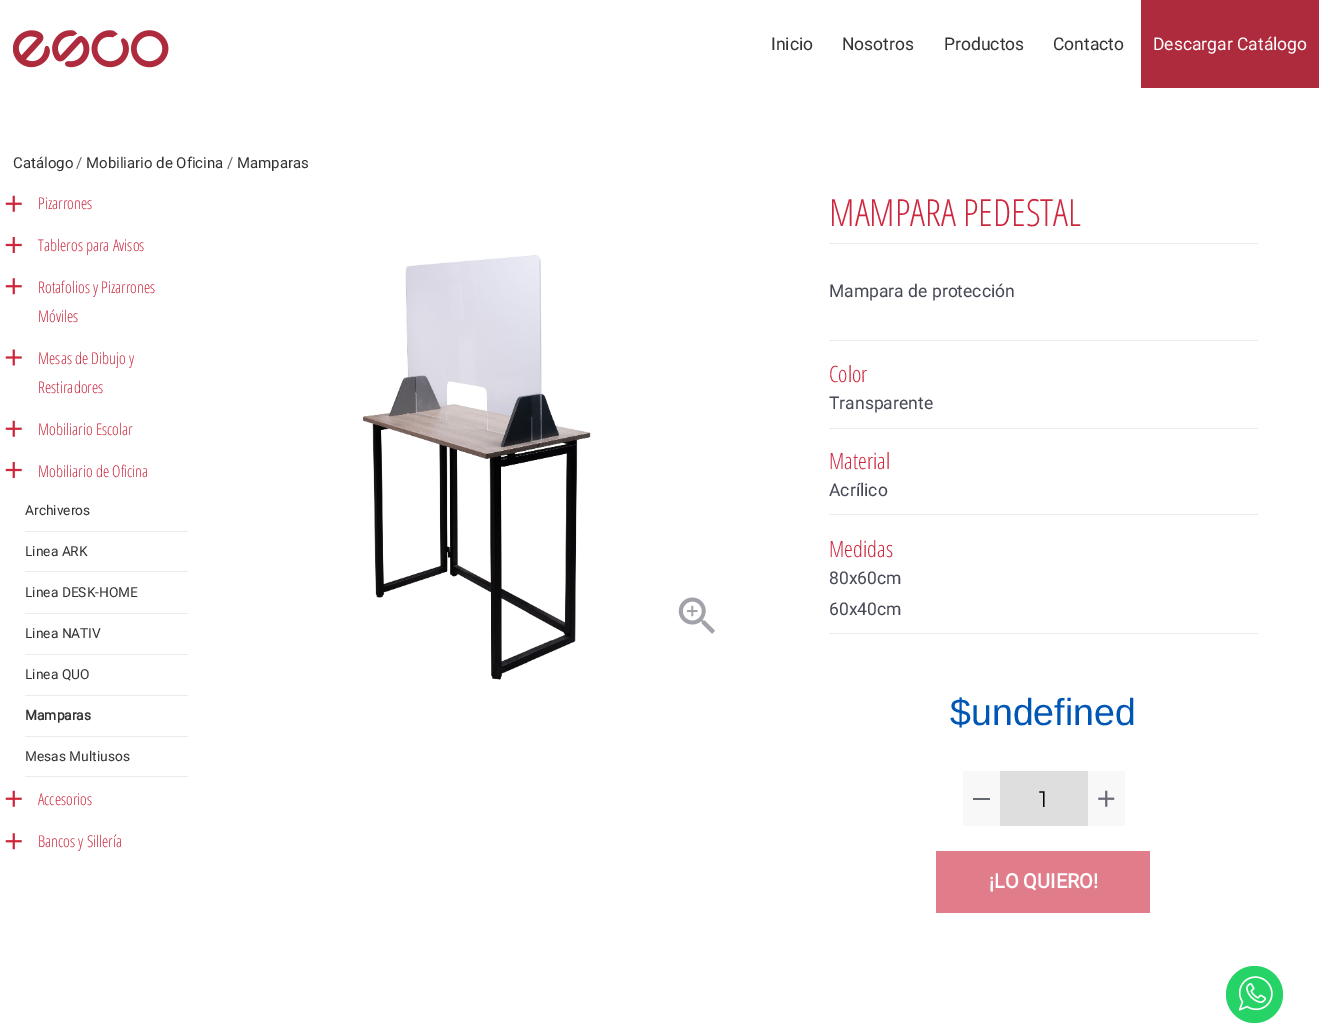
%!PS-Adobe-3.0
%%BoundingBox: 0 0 1319 1034
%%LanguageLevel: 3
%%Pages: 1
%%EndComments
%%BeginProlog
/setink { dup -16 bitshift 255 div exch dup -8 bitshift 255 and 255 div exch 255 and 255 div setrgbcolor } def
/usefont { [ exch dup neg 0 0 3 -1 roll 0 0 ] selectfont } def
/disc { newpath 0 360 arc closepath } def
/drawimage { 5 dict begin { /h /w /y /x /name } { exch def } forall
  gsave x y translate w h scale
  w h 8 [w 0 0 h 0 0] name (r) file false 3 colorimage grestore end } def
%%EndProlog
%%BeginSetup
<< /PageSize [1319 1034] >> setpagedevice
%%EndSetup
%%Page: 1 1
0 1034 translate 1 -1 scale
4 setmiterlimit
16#FFFFFF setink
0 0 1319 1034 rectfill
(img1.raw) 13 30 156 38 drawimage
/Roboto-Regular 17.5 usefont
16#333333 setink
[
    [(Inicio) 771 50]
    [(Nosotros) 842 50]
    [(Productos) 944 50]
    [(Contacto) 1053 50]
] { aload pop moveto show } forall
16#AE2B3E setink
1141 0 178 88 rectfill
16#FFFFFF setink
1153 50 moveto (Descargar Catálogo) show
/Roboto-Regular 15 usefont
16#333333 setink
13 168 moveto (Catálogo) show
16#666666 setink
76 168 moveto (/) show
16#333333 setink
86 168 moveto (Mobiliario de Oficina) show
16#666666 setink
227 168 moveto (/) show
16#333333 setink
237 168 moveto (Mamparas) show
(img2.raw) 5 195 17 17 drawimage
/OpenSansCondensed-Light 16.25 usefont
16#CD273D setink
38 209 moveto (Pizarrones) show
(img3.raw) 5 237 17 16 drawimage
38 251 moveto (Tableros para Avisos) show
(img4.raw) 5 278 17 17 drawimage
38 293 moveto (Rotafolios y Pizarrones) show
38 322 moveto (Móviles) show
(img5.raw) 5 349 17 17 drawimage
38 364 moveto (Mesas de Dibujo y) show
38 393 moveto (Restiradores) show
(img2.raw) 5 420 17 17 drawimage
38 435 moveto (Mobiliario Escolar) show
(img3.raw) 5 462 17 16 drawimage
38 477 moveto (Mobiliario de Oficina) show
/Roboto-Regular 13.75 usefont
16#333333 setink
25 515 moveto (Archiveros) show
16#EBEBEB setink
25 531 163 1 rectfill
16#333333 setink
25 556 moveto (Linea ARK) show
16#EBEBEB setink
25 571 163 1 rectfill
16#333333 setink
25 597 moveto (Linea DESK-HOME) show
16#EBEBEB setink
25 613 163 1 rectfill
16#333333 setink
25 638 moveto (Linea NATIV) show
16#EBEBEB setink
25 654 163 1 rectfill
16#333333 setink
25 679 moveto (Linea QUO) show
16#EBEBEB setink
25 695 163 1 rectfill
/Roboto-Bold 13.75 usefont
16#333333 setink
25 720 moveto (Mamparas) show
16#EBEBEB setink
25 736 163 1 rectfill
/Roboto-Regular 13.75 usefont
16#333333 setink
25 761 moveto (Mesas Multiusos) show
16#EBEBEB setink
25 776 163 1 rectfill
(img2.raw) 5 790 17 17 drawimage
/OpenSansCondensed-Light 16.25 usefont
16#CD273D setink
38 805 moveto (Accesorios) show
(img4.raw) 5 833 17 17 drawimage
38 847 moveto (Bancos y Sillería) show
(img6.raw) 363 255 228 425 drawimage
(img7.raw) 678 597 37 37 drawimage
/OpenSansCondensed-Light 37.5 usefont
829 226 moveto (MAMPARA PEDESTAL) show
16#EBEBEB setink
829 243 429 1 rectfill
/Roboto-Regular 17.5 usefont
16#464855 setink
829 297 moveto (Mampara de protección) show
16#EBEBEB setink
829 340 429 1 rectfill
/OpenSansCondensed-Light 22.5 usefont
16#CD273D setink
829 382 moveto (Color) show
/Roboto-Regular 17.5 usefont
16#464855 setink
829 409 moveto (Transparente) show
16#EBEBEB setink
829 428 429 1 rectfill
/OpenSansCondensed-Light 22.5 usefont
16#CD273D setink
829 469 moveto (Material) show
/Roboto-Regular 17.5 usefont
16#464855 setink
829 496 moveto (Acrílico) show
16#EBEBEB setink
829 514 429 1 rectfill
/OpenSansCondensed-Light 22.5 usefont
16#CD273D setink
829 557 moveto (Medidas) show
/Roboto-Regular 17.5 usefont
16#464855 setink
829 584 moveto (80x60cm) show
829 615 moveto (60x40cm) show
16#EBEBEB setink
829 633 429 1 rectfill
/LiberationSans-Regular 37.5 usefont
16#0056B4 setink
950 725 moveto ($undefined) show
[
    [963 771 37 55 16#F8F8F8]
    [973 798 17 2 16#646670]
    [1000 771 88 55 16#DEDEDE]
] { aload pop setink rectfill } forall
/Montserrat-Thin 22.5 usefont
16#000000 setink
1039 807 moveto (1) show
16#F8F8F8 setink
1088 771 37 55 rectfill
(img8.raw) 1098 790 17 17 drawimage
16#E17D8B setink
936 851 214 62 rectfill
/Roboto-Bold 20 usefont
16#FFFFFF setink
989 888 moveto (¡LO QUIERO!) show
16#25D366 setink
1254.5 994.5 28.5 disc fill
(img9.raw) 1239 976 34 35 drawimage
showpage
%%EOF
